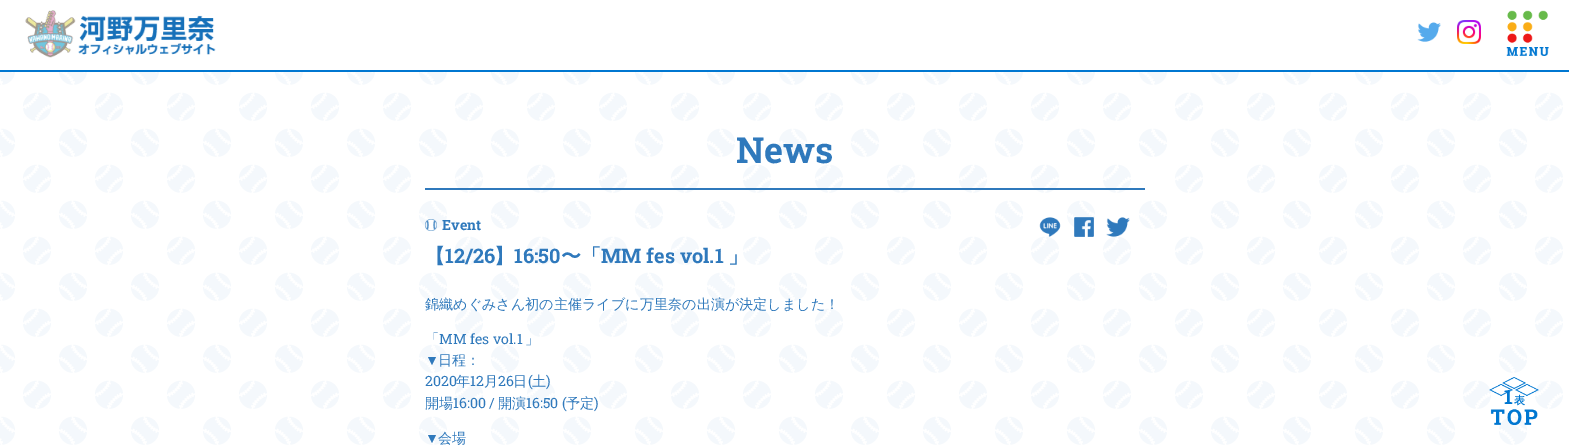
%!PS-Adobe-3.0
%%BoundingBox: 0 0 1569 448
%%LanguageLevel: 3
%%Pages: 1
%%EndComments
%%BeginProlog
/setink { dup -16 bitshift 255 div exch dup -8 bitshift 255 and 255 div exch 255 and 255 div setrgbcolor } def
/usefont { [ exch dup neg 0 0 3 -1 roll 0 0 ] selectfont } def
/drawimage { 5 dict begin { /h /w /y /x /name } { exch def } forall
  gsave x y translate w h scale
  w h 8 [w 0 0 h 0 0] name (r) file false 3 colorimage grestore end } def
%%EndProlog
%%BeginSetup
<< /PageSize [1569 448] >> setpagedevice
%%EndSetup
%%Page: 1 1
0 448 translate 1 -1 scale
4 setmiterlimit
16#FFFFFF setink
0 0 1569 448 rectfill
16#0077D1 setink
0 70 1569 2 rectfill
(img1.raw) 25 10 191 48 drawimage
(img2.raw) 1417 22 24 20 drawimage
(img3.raw) 1457 20 24 24 drawimage
(img4.raw) 1506 10 43 46 drawimage
(img5.raw) 0 72 1563 373 drawimage
/RobotoSlab-Bold 36 usefont
16#2F79BC setink
736 163 moveto (News) show
425 188 720 2 rectfill
(img6.raw) 425 219 12 12 drawimage
/RobotoSlab-Bold 14.1 usefont
442 230 moveto (Event) show
(img7.raw) 1039 217 22 20 drawimage
(img8.raw) 1074 217 20 20 drawimage
(img9.raw) 1106 217 24 20 drawimage
/WenQuanYiZenHei-Bold 20 usefont
425 263 moveto (【) show
/RobotoSlab-Bold 20 usefont
445 263 moveto (12/26) show
/WenQuanYiZenHei-Bold 20 usefont
494 263 moveto (】) show
/RobotoSlab-Bold 20 usefont
514 263 moveto (16:50) show
/WenQuanYiZenHei-Bold 20 usefont
561 263 moveto (〜「) show
/RobotoSlab-Bold 20 usefont
601 263 moveto (MM fes vol.1) show
/WenQuanYiZenHei-Bold 20 usefont
728 263 moveto (」) show
/WenQuanYiZenHei-Medium 14.1 usefont
425 309 moveto (錦織めぐみさん初の主催ライブに万里奈の出演が決定しました！) show
425 344 moveto (「) show
/RobotoSlab-Regular 14.1 usefont
439 344 moveto (MM fes vol.1) show
/WenQuanYiZenHei-Medium 14.1 usefont
525 344 moveto (」) show
/LiberationSans-Regular 14.1 usefont
425 365 moveto (▼) show
/WenQuanYiZenHei-Medium 14.1 usefont
438 365 moveto (日程：) show
/RobotoSlab-Regular 14.1 usefont
425 386 moveto (2020) show
/WenQuanYiZenHei-Medium 14.1 usefont
456 386 moveto (年) show
/RobotoSlab-Regular 14.1 usefont
470 386 moveto (12) show
/WenQuanYiZenHei-Medium 14.1 usefont
484 386 moveto (月) show
/RobotoSlab-Regular 14.1 usefont
498 386 moveto (26) show
/WenQuanYiZenHei-Medium 14.1 usefont
513 386 moveto (日) show
/RobotoSlab-Regular 14.1 usefont
528 386 moveto (\() show
/WenQuanYiZenHei-Medium 14.1 usefont
532 386 moveto (土) show
/RobotoSlab-Regular 14.1 usefont
546 386 moveto (\)) show
/WenQuanYiZenHei-Medium 14.1 usefont
425 408 moveto (開場) show
/RobotoSlab-Regular 14.1 usefont
453 408 moveto (16:00 /) show
/WenQuanYiZenHei-Medium 14.1 usefont
498 408 moveto (開演) show
/RobotoSlab-Regular 14.1 usefont
526 408 moveto (16:50 \() show
/WenQuanYiZenHei-Medium 14.1 usefont
566 408 moveto (予定) show
/RobotoSlab-Regular 14.1 usefont
594 408 moveto (\)) show
/LiberationSans-Regular 14.1 usefont
425 443 moveto (▼) show
/WenQuanYiZenHei-Medium 14.1 usefont
438 443 moveto (会場) show
(img10.raw) 1489 377 50 48 drawimage
/RobotoSlab-Bold 20 usefont
16#0077D1 setink
1504 404 moveto -1 0 (1) ashow
/WenQuanYiZenHei-Bold 11 usefont
1514 404 moveto -1 0 (表) ashow
showpage
%%EOF
